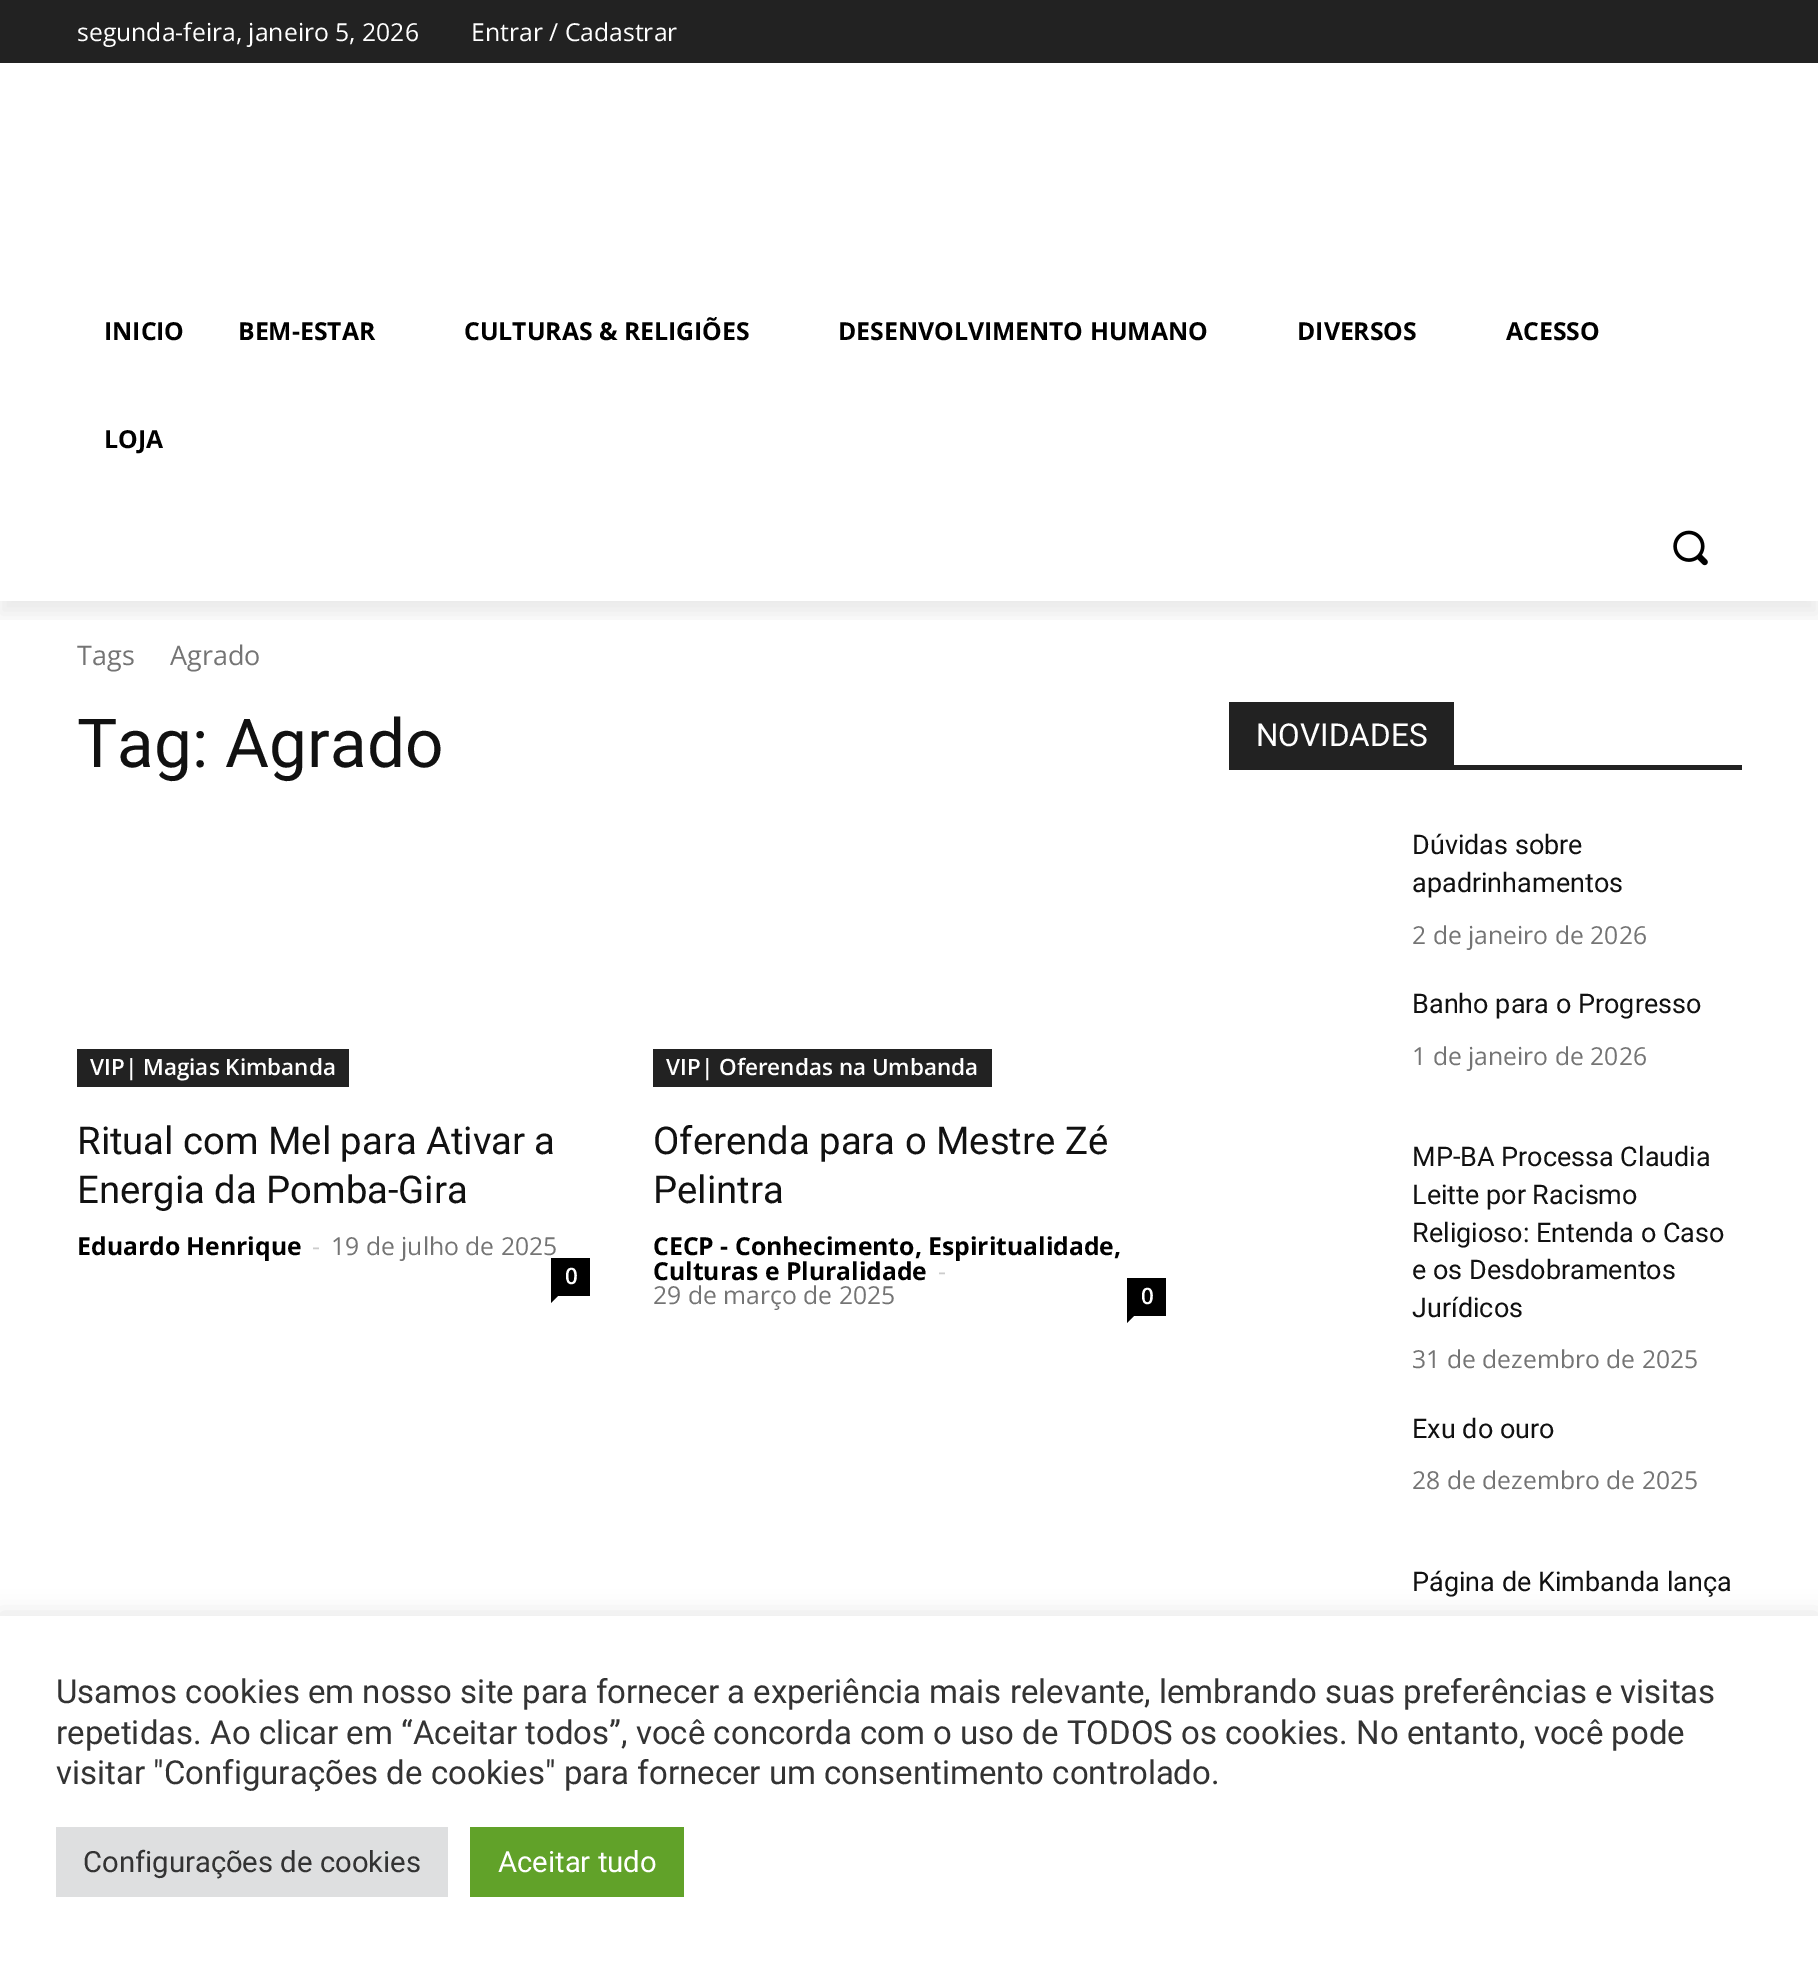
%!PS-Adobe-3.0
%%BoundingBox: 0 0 1818 1964
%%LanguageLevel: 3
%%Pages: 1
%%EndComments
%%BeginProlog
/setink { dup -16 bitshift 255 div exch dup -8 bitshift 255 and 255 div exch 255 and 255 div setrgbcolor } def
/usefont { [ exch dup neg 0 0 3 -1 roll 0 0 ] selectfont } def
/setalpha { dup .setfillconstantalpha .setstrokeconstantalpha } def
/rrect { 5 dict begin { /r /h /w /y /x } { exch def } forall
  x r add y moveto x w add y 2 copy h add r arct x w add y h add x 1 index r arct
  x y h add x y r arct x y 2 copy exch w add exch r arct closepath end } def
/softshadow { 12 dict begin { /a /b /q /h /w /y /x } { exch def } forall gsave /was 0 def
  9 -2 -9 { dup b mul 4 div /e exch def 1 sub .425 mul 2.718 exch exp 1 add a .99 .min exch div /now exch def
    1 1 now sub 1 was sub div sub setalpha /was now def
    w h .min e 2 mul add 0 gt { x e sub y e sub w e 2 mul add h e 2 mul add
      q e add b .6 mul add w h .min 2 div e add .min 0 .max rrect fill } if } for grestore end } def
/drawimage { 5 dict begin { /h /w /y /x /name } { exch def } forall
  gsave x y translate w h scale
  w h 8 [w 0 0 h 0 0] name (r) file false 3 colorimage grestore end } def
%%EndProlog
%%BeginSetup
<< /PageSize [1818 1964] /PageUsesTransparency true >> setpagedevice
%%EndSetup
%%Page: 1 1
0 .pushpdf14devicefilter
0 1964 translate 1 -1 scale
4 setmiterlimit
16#FFFFFF setink
0 0 1818 1964 rectfill
16#222222 setink
0 0 1818 63 rectfill
gsave
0 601 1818 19 rectclip
16#000000 setink
0 14 1818 600 0 9 0.08 softshadow
grestore
/OpenSans-Regular 24.75 usefont
16#FFFFFF setink
77 41 moveto (segunda-feira, janeiro 5, 2026) show
471 41 moveto (Entrar / Cadastrar) show
/OpenSans-Bold 24.75 usefont
16#000000 setink
[
    [(INICIO) 104 340]
    [(BEM-ESTAR) 238 340]
    [(CULTURAS & RELIGIÕES) 464 340]
    [(DESENVOLVIMENTO HUMANO) 838 340]
    [(DIVERSOS) 1297 340]
    [(ACESSO) 1506 340]
    [(LOJA) 104 448]
] { aload pop moveto show } forall
(img1.raw) 1673 530 35 36 drawimage
/OpenSans-Regular 27 usefont
16#747474 setink
77 665 moveto (Tags) show
170 665 moveto (Agrado) show
/Roboto-Regular 67.5 usefont
16#111111 setink
77 767 moveto (Tag: Agrado) show
16#222222 setink
77 1049 272 38 rectfill
/OpenSans-SemiBold 22.5 usefont
16#FFFFFF setink
90 1075 moveto (VIP| Magias Kimbanda) show
/Roboto-Regular 38.25 usefont
16#111111 setink
77 1154 moveto (Ritual com Mel para Ativar a) show
77 1203 moveto (Energia da Pomba-Gira) show
/OpenSans-Bold 24.75 usefont
16#000000 setink
77 1255 moveto (Eduardo Henrique) show
/OpenSans-Regular 24.75 usefont
16#CCCCCC setink
312 1255 moveto (-) show
16#747474 setink
331 1255 moveto (19 de julho de 2025) show
16#000000 setink
551 1258 39 38 rectfill
/OpenSans-SemiBold 22.5 usefont
16#FFFFFF setink
565 1284 moveto (0) show
16#000000 setink
551 1296 moveto 558 1296 lineto 551 1303 lineto closepath fill
16#222222 setink
653 1049 339 38 rectfill
16#FFFFFF setink
666 1075 moveto (VIP| Oferendas na Umbanda) show
/Roboto-Regular 38.25 usefont
16#111111 setink
653 1154 moveto (Oferenda para o Mestre Zé) show
653 1203 moveto (Pelintra) show
/OpenSans-Bold 24.75 usefont
16#000000 setink
653 1255 moveto (CECP - Conhecimento, Espiritualidade,) show
653 1280 moveto (Culturas e Pluralidade) show
/OpenSans-Regular 24.75 usefont
16#CCCCCC setink
938 1280 moveto (-) show
16#747474 setink
653 1304 moveto (29 de março de 2025) show
16#000000 setink
1127 1278 39 38 rectfill
/OpenSans-SemiBold 22.5 usefont
16#FFFFFF setink
1141 1304 moveto (0) show
16#000000 setink
1127 1316 moveto 1134 1316 lineto 1127 1323 lineto closepath fill
16#222222 setink
1229 765 513 5 rectfill
1229 702 225 63 rectfill
/Roboto-Regular 31.5 usefont
16#FFFFFF setink
1256 746 moveto (NOVIDADES) show
/Roboto-Regular 27 usefont
16#111111 setink
1412 854 moveto (Dúvidas sobre) show
1412 892 moveto (apadrinhamentos) show
/OpenSans-Regular 24.75 usefont
16#747474 setink
1412 944 moveto (2 de janeiro de 2026) show
/Roboto-Regular 27 usefont
16#111111 setink
1412 1013 moveto (Banho para o Progresso) show
/OpenSans-Regular 24.75 usefont
16#747474 setink
1412 1065 moveto (1 de janeiro de 2026) show
/Roboto-Regular 27 usefont
16#111111 setink
[
    [(MP-BA Processa Claudia) 1412 1166]
    [(Leitte por Racismo) 1412 1204]
    [(Religioso: Entenda o Caso) 1412 1242]
    [(e os Desdobramentos) 1412 1279]
    [(Jurídicos) 1412 1317]
] { aload pop moveto show } forall
/OpenSans-Regular 24.75 usefont
16#747474 setink
1412 1368 moveto (31 de dezembro de 2025) show
/Roboto-Regular 27 usefont
16#111111 setink
1412 1438 moveto (Exu do ouro) show
/OpenSans-Regular 24.75 usefont
16#747474 setink
1412 1489 moveto (28 de dezembro de 2025) show
/Roboto-Regular 27 usefont
16#111111 setink
1412 1591 moveto (Página de Kimbanda lança) show
16#ACABAB setink
0 1613 1818 349 0 11 0.3 softshadow
16#FFFFFF setink
0 1616 1818 348 rectfill
/Roboto-Regular 33 usefont
16#333333 setink
[
    [(Usamos cookies em nosso site para fornecer a experiência mais relevante, lembrando suas preferências e visitas) 56 1703]
    [(repetidas. Ao clicar em “Aceitar todos”, você concorda com o uso de TODOS os cookies. No entanto, você pode) 56 1744]
    [(visitar "Configurações de cookies" para fornecer um consentimento controlado.) 56 1784]
] { aload pop moveto show } forall
16#DEDFE0 setink
56 1827 392 70 rectfill
/Roboto-Regular 29.25 usefont
16#333333 setink
83 1872 moveto (Configurações de cookies) show
16#61A229 setink
470 1827 214 70 rectfill
16#FFFFFF setink
498 1872 moveto (Aceitar tudo) show
.poppdf14devicefilter showpage
%%EOF
